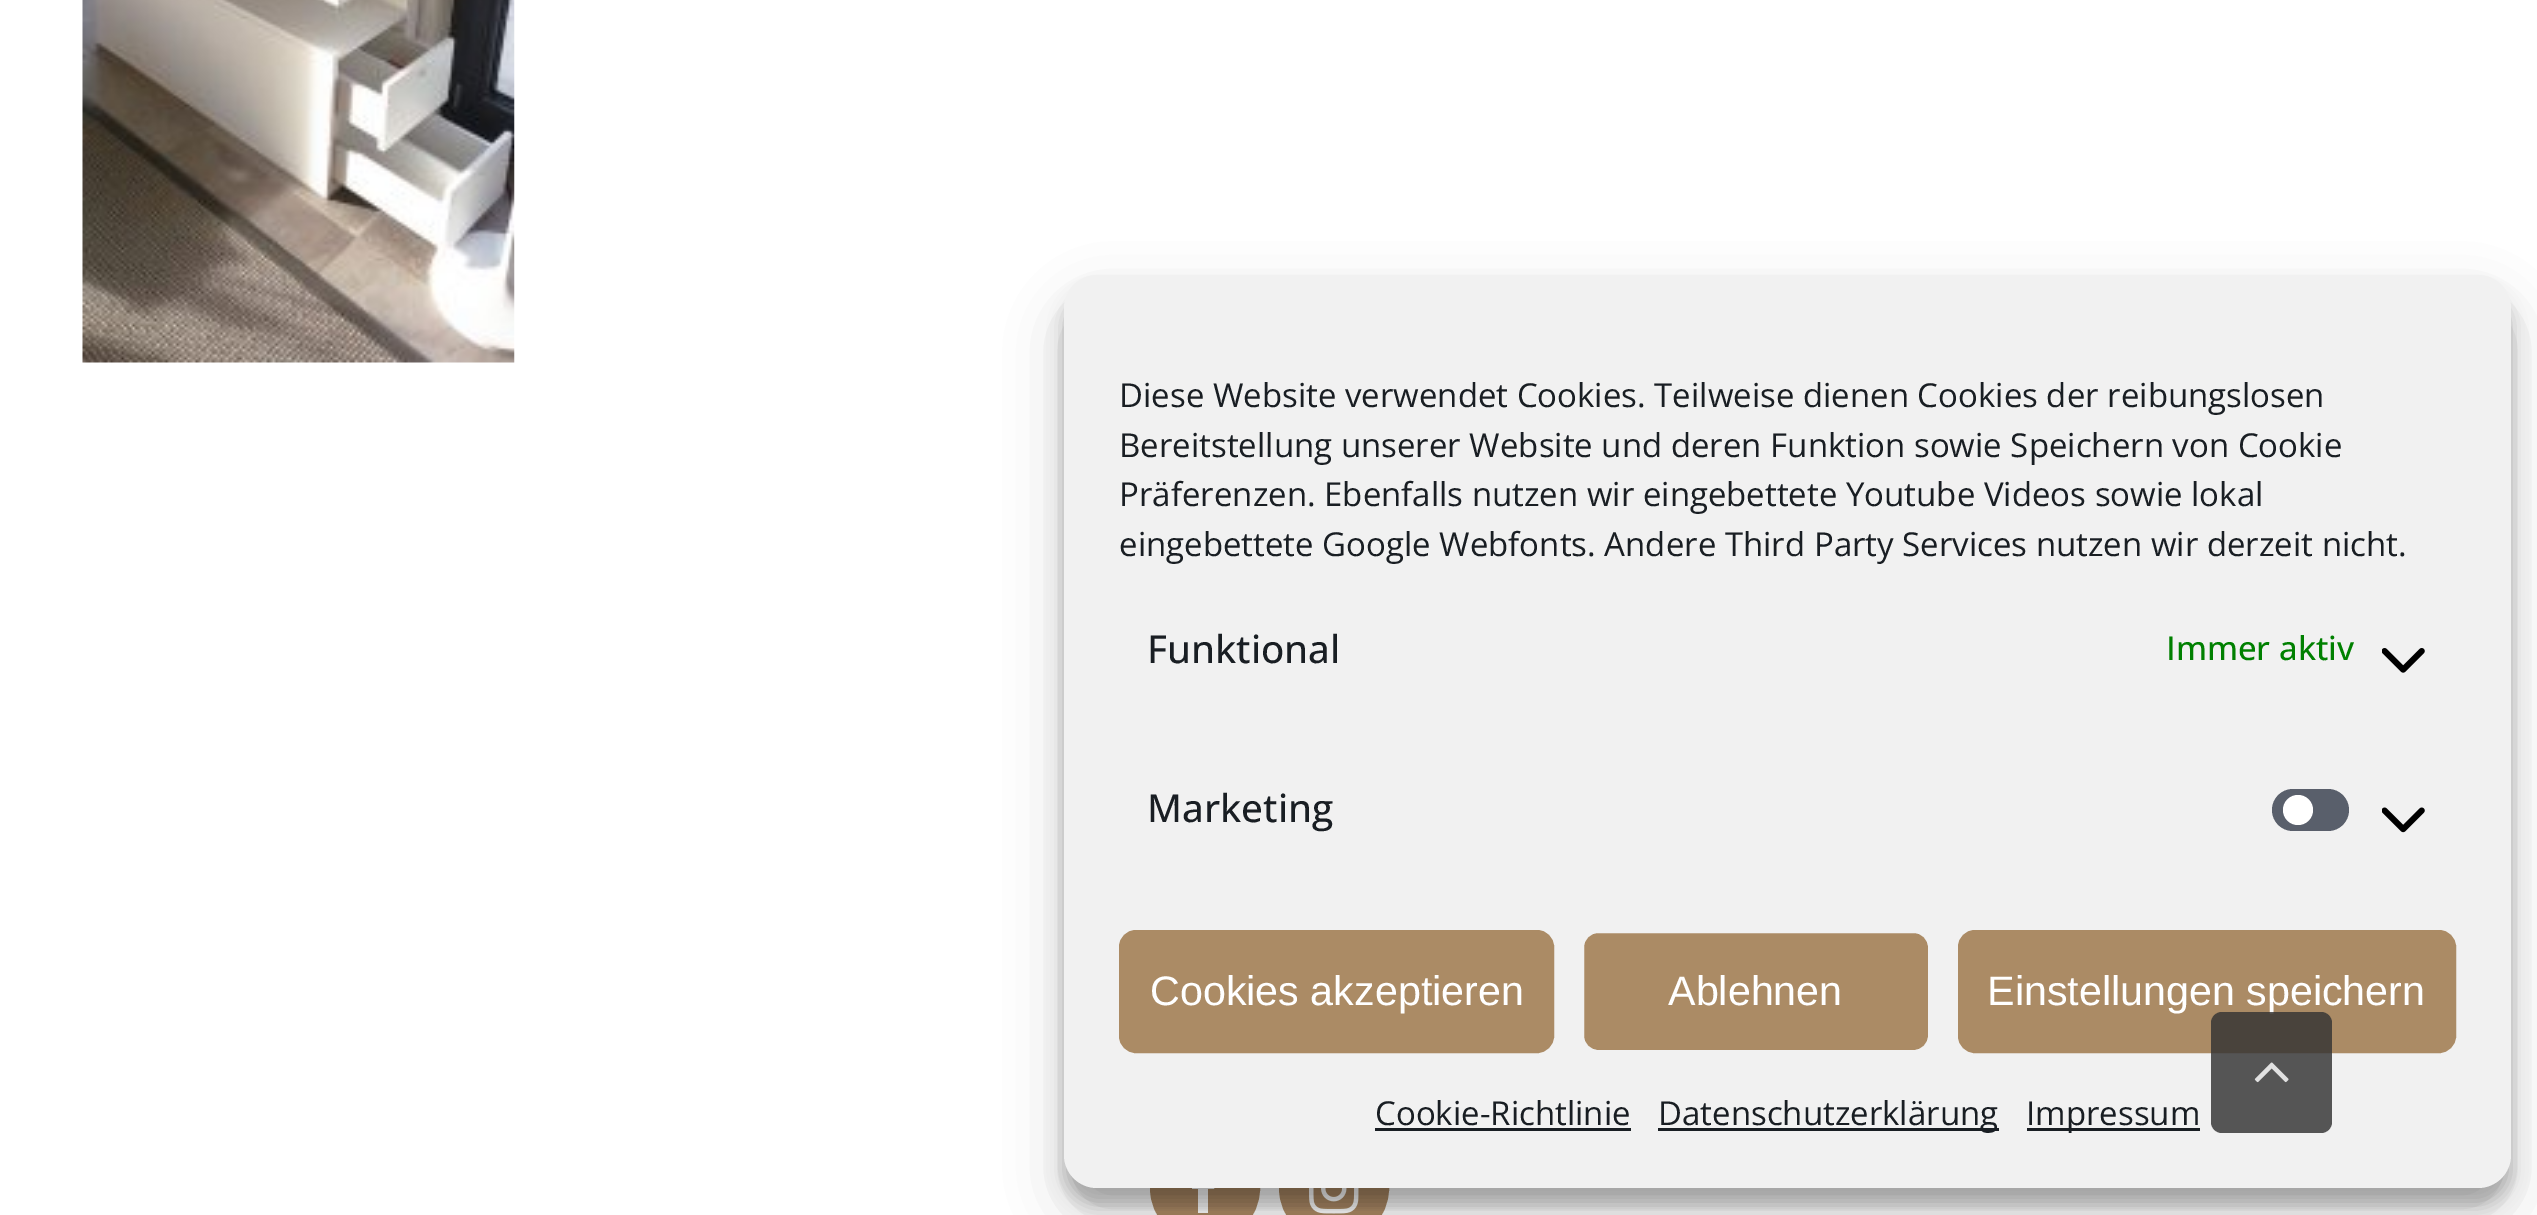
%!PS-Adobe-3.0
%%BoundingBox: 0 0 2537 1215
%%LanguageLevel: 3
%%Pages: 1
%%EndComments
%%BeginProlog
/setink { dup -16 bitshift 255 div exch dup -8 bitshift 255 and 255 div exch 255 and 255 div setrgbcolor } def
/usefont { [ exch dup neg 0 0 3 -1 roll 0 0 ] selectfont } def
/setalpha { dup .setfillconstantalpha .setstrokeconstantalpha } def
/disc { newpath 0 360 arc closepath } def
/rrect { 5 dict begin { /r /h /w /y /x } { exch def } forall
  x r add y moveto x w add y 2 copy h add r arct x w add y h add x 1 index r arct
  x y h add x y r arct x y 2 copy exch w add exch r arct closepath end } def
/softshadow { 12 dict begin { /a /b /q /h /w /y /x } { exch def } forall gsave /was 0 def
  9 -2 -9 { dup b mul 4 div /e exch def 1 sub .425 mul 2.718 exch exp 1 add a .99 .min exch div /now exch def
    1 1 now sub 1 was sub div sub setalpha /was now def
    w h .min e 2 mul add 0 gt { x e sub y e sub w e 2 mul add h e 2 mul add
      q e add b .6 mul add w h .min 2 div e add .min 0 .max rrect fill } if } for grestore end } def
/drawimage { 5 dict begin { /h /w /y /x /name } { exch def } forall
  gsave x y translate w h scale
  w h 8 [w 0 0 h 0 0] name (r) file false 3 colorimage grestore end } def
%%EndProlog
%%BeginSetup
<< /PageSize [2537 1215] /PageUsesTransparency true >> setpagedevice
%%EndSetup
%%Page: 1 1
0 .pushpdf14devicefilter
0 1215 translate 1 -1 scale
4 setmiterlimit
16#FFFFFF setink
0 0 2537 1215 rectfill
(img1.raw) 82 0 433 363 drawimage
16#AB8B65 setink
1205 1188 53.5 disc gsave fill grestore
3 setlinewidth
stroke
16#FFFFFF setink
1208 1213 moveto 1198 1213 lineto 1198 1189 lineto 1192 1189 lineto 1192 1180 lineto 1198 1180 lineto 1198 1165 1200 1164 1215 1164 curveto 1215 1172 lineto 1207 1172 1208 1172 1208 1180 curveto 1215 1180 lineto 1214 1189 lineto 1208 1189 lineto closepath fill
16#AB8B65 setink
1334 1188 53.5 disc gsave fill grestore
stroke
(img2.raw) 1309 1188 50 26 drawimage
16#000000 setink
1064 292 1447 913 33 8 0.23 softshadow
1064 303 1447 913 33 27.5 0.19 softshadow
16#F1F1F1 setink
1064 275 1447 913 33 rrect fill
/OpenSans-Regular 33 usefont
16#191E23 setink
[
    [(Diese Website verwendet Cookies. Teilweise dienen Cookies der reibungslosen) 1119 407]
    [(Bereitstellung unserer Website und deren Funktion sowie Speichern von Cookie) 1119 457]
    [(Präferenzen. Ebenfalls nutzen wir eingebettete Youtube Videos sowie lokal) 1119 506]
    [(eingebettete Google Webfonts. Andere Third Party Services nutzen wir derzeit nicht.) 1119 556]
] { aload pop moveto show } forall
/OpenSans-Medium 38.5 usefont
1147 663 moveto (Funktional) show
/OpenSans-Medium 33 usefont
16#008000 setink
2166 660 moveto (Immer aktiv) show
(img3.raw) 2382 648 43 25 drawimage
/OpenSans-Medium 38.5 usefont
16#191E23 setink
1147 822 moveto (Marketing) show
16#595F6B setink
2272 789 77 42 21 rrect fill
16#FFFFFF setink
2298 810 15 disc fill
(img4.raw) 2382 807 43 26 drawimage
16#AB8B65 setink
1120.5 931.5 432 120 15.5 rrect gsave fill grestore
stroke
/LiberationSans-Regular 41.25 usefont
16#FFFFFF setink
1150 1005 moveto (Cookies akzeptieren) show
16#AB8B65 setink
1582.5 931.5 347 120 15.5 rrect gsave fill grestore
16#F1F1F1 setink
stroke
16#FFFFFF setink
1668 1005 moveto (Ablehnen) show
16#AB8B65 setink
1959.5 931.5 495 120 15.5 rrect gsave fill grestore
stroke
16#FFFFFF setink
1987 1005 moveto (Einstellungen speichern) show
/OpenSans-Regular 33 usefont
16#191E23 setink
1375 1125 moveto (Cookie-Richtlinie) show
1375 1128 256 3 rectfill
1658 1128 341 3 rectfill
1658 1125 moveto (Datenschutzerklärung) show
2027 1128 173 3 rectfill
2026 1125 moveto (Impressum) show
0.82 setalpha
16#333333 setink
2211 1012 121 121 11 rrect fill
1 setalpha
(img5.raw) 2254 1062 35 21 drawimage
.poppdf14devicefilter showpage
%%EOF
